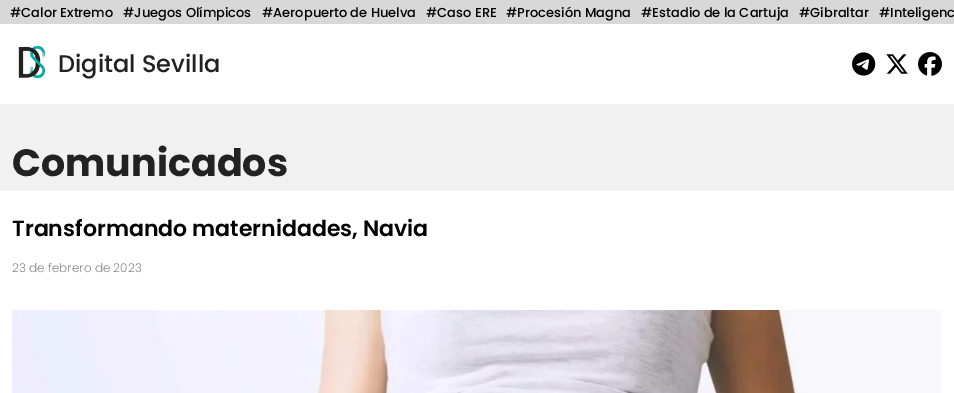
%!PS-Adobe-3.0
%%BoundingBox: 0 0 954 393
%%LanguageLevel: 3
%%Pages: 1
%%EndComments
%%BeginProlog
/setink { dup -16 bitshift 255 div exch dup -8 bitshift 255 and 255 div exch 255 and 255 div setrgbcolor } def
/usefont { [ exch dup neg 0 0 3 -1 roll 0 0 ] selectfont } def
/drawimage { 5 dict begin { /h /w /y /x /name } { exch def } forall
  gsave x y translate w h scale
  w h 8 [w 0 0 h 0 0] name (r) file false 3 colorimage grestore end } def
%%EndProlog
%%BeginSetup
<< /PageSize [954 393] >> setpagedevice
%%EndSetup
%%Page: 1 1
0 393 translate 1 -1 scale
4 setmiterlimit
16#FFFFFF setink
0 0 954 393 rectfill
16#D8D8D8 setink
0 0 954 24 rectfill
/Poppins-Medium 13 usefont
16#000000 setink
[
    [(#Calor Extremo) 10 17]
    [(#Juegos Olímpicos) 123 17]
    [(#Aeropuerto de Huelva) 262 17]
    [(#Caso ERE) 426 17]
    [(#Procesión Magna) 506 17]
    [(#Estadio de la Cartuja) 641 17]
    [(#Gibraltar) 799 17]
    [(#Inteligenc) 879 17]
] { aload pop moveto show } forall
(img1.raw) 18 45 28 34 drawimage
/Poppins-Medium 24 usefont
16#222222 setink
58 72 moveto (Digital Sevilla) show
(img2.raw) 852 52 24 24 drawimage
(img3.raw) 886 54 22 20 drawimage
(img4.raw) 918 52 24 24 drawimage
16#F1F1F1 setink
0 104 954 87 rectfill
/Poppins-Bold 38 usefont
16#222222 setink
12 176 moveto (Comunicados) show
/Poppins-SemiBold 22 usefont
16#000000 setink
12 236 moveto (Transformando maternidades, Navia) show
/Poppins-Light 12 usefont
16#888888 setink
12 272 moveto (23 de febrero de 2023) show
(img5.raw) 12 310 930 83 drawimage
showpage
%%EOF
